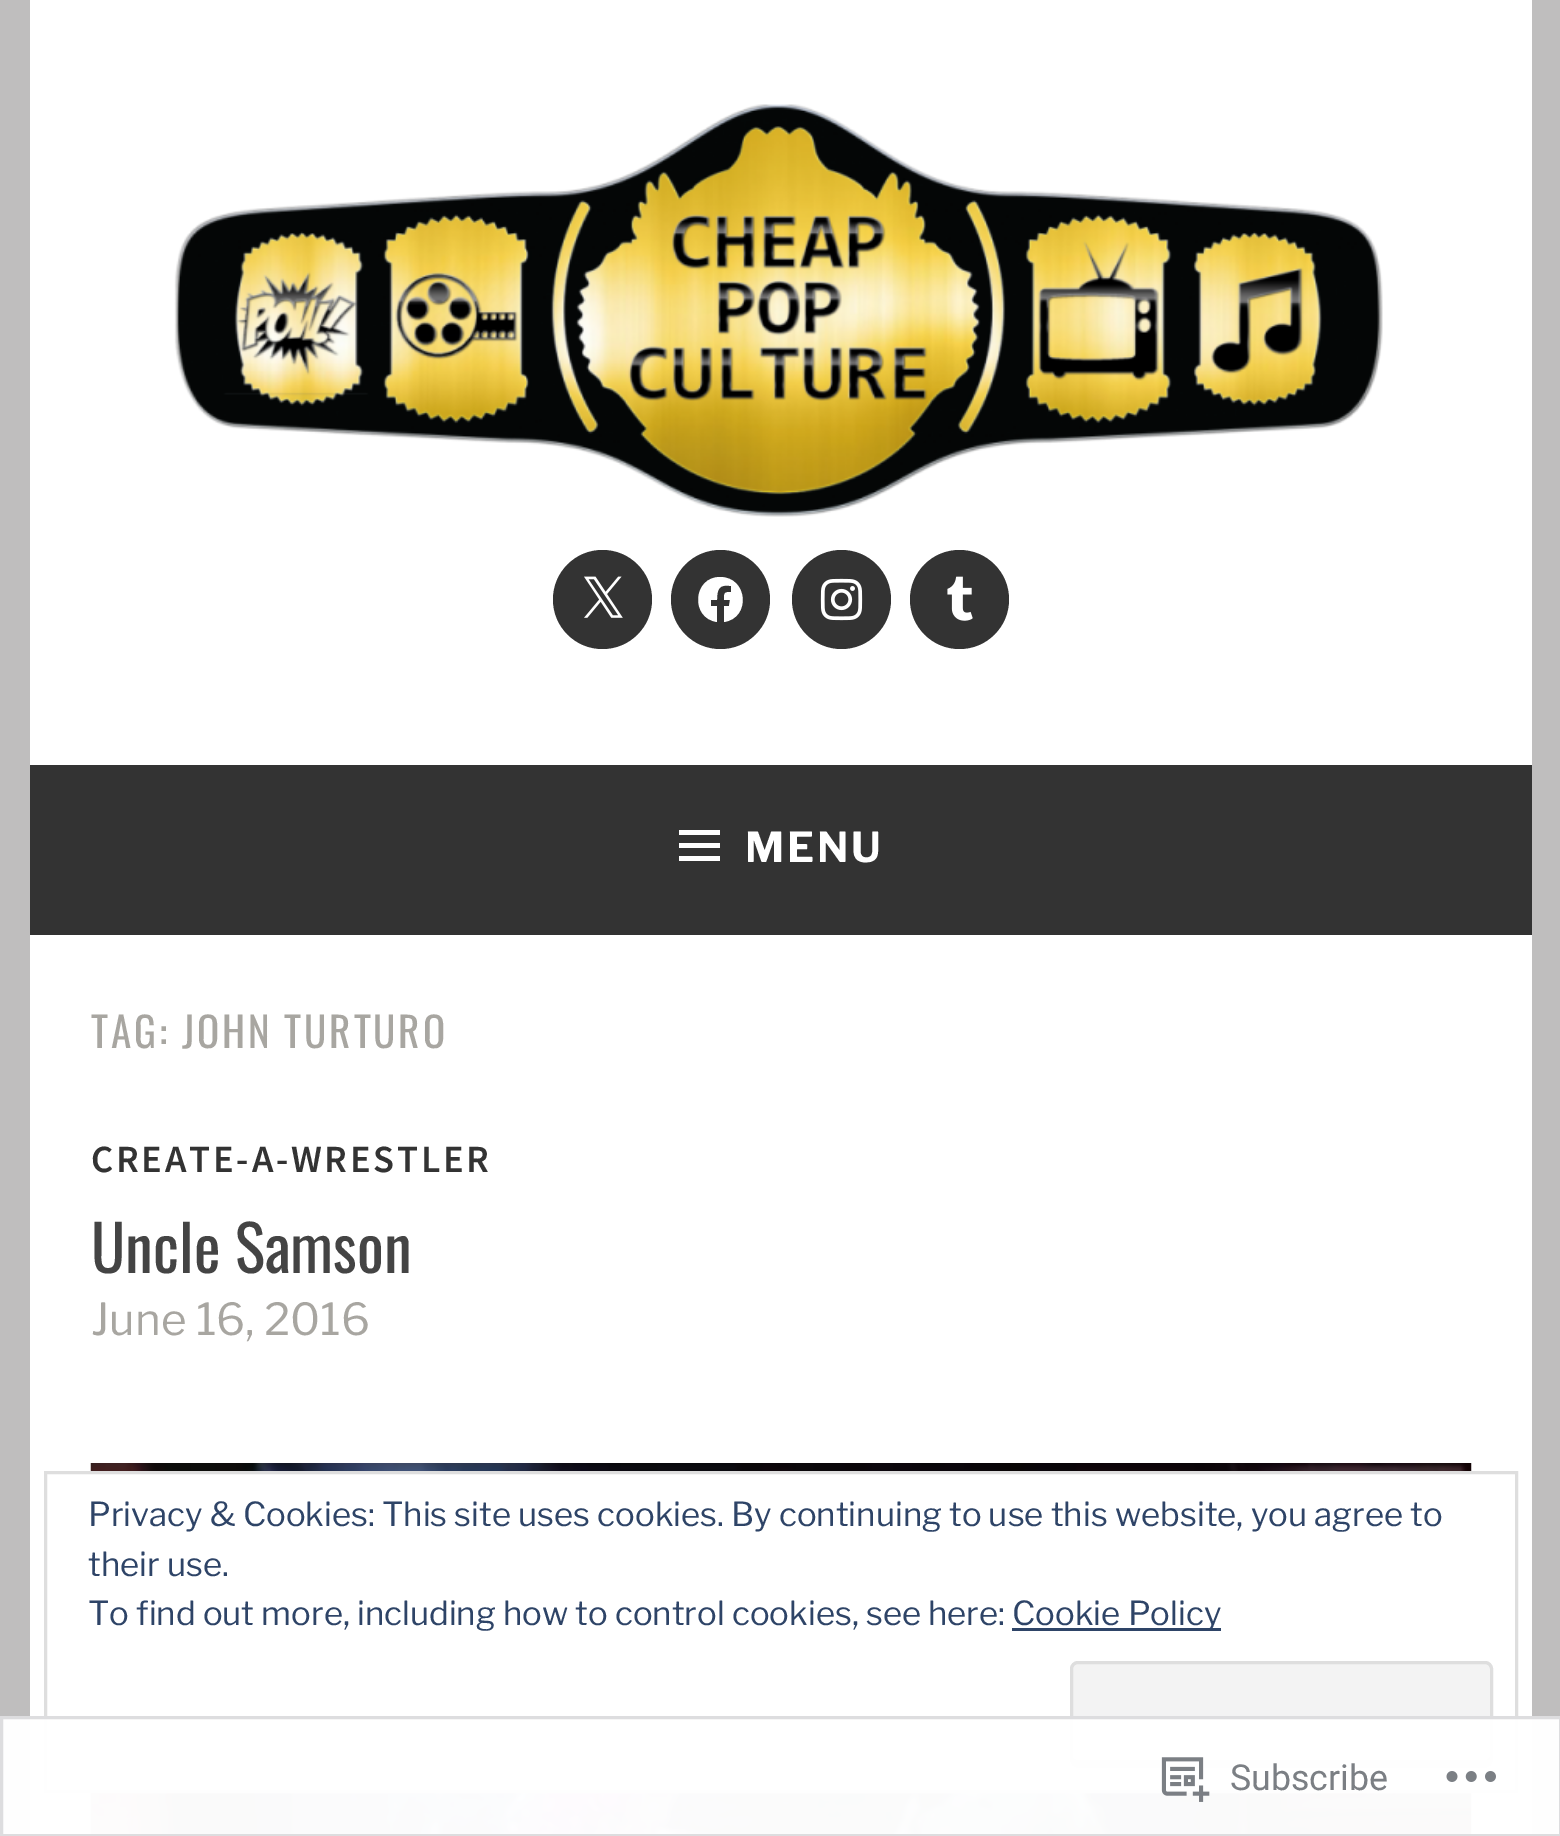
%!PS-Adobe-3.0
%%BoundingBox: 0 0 1560 1836
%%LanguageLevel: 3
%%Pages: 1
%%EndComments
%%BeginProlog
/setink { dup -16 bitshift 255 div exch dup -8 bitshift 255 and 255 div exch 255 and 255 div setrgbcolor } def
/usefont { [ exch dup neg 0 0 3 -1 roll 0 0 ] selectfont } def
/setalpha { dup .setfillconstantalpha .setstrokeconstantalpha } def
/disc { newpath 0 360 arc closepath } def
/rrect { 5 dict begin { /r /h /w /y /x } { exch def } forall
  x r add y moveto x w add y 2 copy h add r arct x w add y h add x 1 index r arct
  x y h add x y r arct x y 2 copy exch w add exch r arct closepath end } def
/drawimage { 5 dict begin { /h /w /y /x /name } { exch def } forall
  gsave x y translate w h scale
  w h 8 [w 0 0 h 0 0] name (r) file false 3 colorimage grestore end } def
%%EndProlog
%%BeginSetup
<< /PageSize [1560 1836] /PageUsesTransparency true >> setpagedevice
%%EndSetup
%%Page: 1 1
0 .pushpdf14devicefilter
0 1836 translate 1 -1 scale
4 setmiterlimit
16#BFBEBE setink
0 0 1560 1836 rectfill
16#FFFFFF setink
30 0 1502 765 rectfill
(img1.raw) 174 104 1209 413 drawimage
16#333333 setink
602.5 599.5 49.5 disc fill
(img2.raw) 584 576 39 42 drawimage
720.5 599.5 49.5 disc fill
16#FFFFFF setink
720 577 moveto 693 577 690 618 717 622 curveto 717 606 lineto 711 606 lineto 711 600 lineto 717 600 lineto 717 589 719 584 731 586 curveto 731 592 lineto 724 592 724 593 724 600 curveto 730 600 lineto 729 606 lineto 724 606 lineto 724 622 lineto 751 618 748 577 720 577 curveto closepath fill
16#333333 setink
841.5 599.5 49.5 disc fill
(img3.raw) 820 578 43 43 drawimage
959.5 599.5 49.5 disc fill
(img4.raw) 947 576 26 45 drawimage
30 765 1502 165 rectfill
16#313131 setink
30 930 1502 5 rectfill
16#FFFFFF setink
679 861 moveto 679 856 lineto 720 856 lineto 720 861 lineto closepath 679 830 moveto 720 830 lineto 720 835 lineto 679 835 lineto closepath 679 848 moveto 679 843 lineto 720 843 lineto 720 848 lineto closepath fill
/LibreFranklin-Bold 41.25 usefont
745 862 moveto 2.75 0 (MENU) ashow
30 935 1502 901 rectfill
/Oswald-Regular 41.25 usefont
16#A8A6A1 setink
91 1048 moveto 2.75 0 (TAG: JOHN TURTURO) ashow
/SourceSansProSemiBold-SemiBold 38.5 usefont
16#333333 setink
91 1172 moveto 2.75 0 (CREATE-A-WRESTLER) ashow
/Oswald-Regular 63.25 usefont
16#444444 setink
91 1273 moveto (Uncle Samson) show
/LibreFranklin-Regular 44 usefont
16#A8A6A1 setink
91 1335 moveto (June 16, 2016) show
(img5.raw) 90 1463 1382 373 drawimage
16#FFFFFF setink
90 1474 1382 316 rectfill
16#DEDEDE setink
3 setlinewidth
45.5 1472.5 1471 319 rectstroke
/LibreFranklin-Regular 33 usefont
16#2E4467 setink
[
    [(Privacy & Cookies: This site uses cookies. By continuing to use this website, you agree to) 88 1526]
    [(their use.) 88 1576]
    [(To find out more, including how to control cookies, see here:) 88 1625]
] { aload pop moveto show } forall
1012 1628 209 3 rectfill
1012 1625 moveto (Cookie Policy) show
16#F3F3F3 setink
1070 1661 423 107 8 rrect fill
16#DBDBDB setink
1073 1758 moveto 1073 1760 lineto 1073 1763 1076 1766 1079 1766 curveto 1485 1766 lineto 1488 1766 1491 1763 1491 1760 curveto 1491 1670 lineto 1491 1669 1491 1668 1490 1667 curveto 1490 1754 lineto 1490 1758 1488 1760 1485 1760 curveto 1078 1760 lineto 1076 1760 1074 1759 1073 1758 curveto closepath fill
16#DEDEDE setink
1071.5 1662.5 420 104 6.5 rrect stroke
0.98 setalpha
16#FFFFFF setink
0 1716 1560 120 rectfill
16#DCDCDE setink
1.5 1717.5 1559 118 rectstroke
1 setalpha
(img6.raw) 1161 1757 49 45 drawimage
/Roboto-Regular 35.75 usefont
16#7B7F84 setink
1230 1790 moveto (Subscribe) show
(img7.raw) 1446 1771 50 11 drawimage
.poppdf14devicefilter showpage
%%EOF
